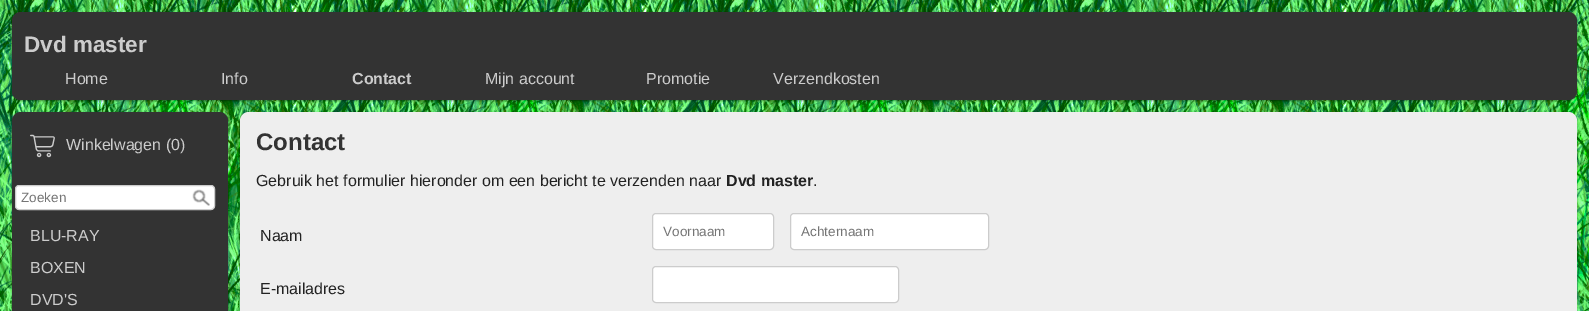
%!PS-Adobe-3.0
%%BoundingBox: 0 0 1589 311
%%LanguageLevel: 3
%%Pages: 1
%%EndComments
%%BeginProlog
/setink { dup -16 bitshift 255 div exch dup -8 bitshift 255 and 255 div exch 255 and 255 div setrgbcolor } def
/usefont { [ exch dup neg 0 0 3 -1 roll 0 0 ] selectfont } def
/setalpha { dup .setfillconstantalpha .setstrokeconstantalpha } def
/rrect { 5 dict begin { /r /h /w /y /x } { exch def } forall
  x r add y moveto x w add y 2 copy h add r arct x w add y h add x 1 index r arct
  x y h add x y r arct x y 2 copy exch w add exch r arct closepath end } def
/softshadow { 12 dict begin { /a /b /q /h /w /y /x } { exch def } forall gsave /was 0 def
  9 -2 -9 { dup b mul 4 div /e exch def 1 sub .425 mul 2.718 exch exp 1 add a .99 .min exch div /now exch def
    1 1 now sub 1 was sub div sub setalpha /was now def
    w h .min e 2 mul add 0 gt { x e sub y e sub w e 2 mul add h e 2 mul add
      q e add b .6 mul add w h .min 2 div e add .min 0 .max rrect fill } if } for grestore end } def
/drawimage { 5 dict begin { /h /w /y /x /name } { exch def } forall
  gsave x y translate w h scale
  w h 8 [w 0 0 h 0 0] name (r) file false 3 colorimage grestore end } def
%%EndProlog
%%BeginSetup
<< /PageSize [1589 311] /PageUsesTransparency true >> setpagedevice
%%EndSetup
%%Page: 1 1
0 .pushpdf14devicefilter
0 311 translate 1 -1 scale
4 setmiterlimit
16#FFFFFF setink
0 0 1589 311 rectfill
(img1.raw) 0 0 1589 311 drawimage
16#000000 setink
12 13 1565 88 9 1 0.4 softshadow
16#333333 setink
12 12 1565 88 9 rrect fill
/LiberationSans-Bold 22.5 usefont
16#CCCCCC setink
24 52 moveto (Dvd master) show
16#333333 setink
12 58 888 42 9 rrect fill
/LiberationSans-Regular 16 usefont
16#CCCCCC setink
65 84 moveto (Home) show
221 84 moveto (Info) show
/LiberationSans-Bold 16 usefont
352 84 moveto (Contact) show
/LiberationSans-Regular 16 usefont
[
    [(Mijn account) 485 84]
    [(Promotie) 646 84]
    [(Verzendkosten) 773 84]
] { aload pop moveto show } forall
16#000000 setink
12 113 216 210 9 1 0.4 softshadow
16#333333 setink
12 112 216 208 9 rrect fill
(img2.raw) 30 134 25 24 drawimage
16#CCCCCC setink
66 150 moveto (Winkelwagen \(0\)) show
16#FFFFFF setink
15.5 185.5 199 24 3.5 rrect gsave fill grestore
16#CCCCCC setink
stroke
/LiberationSans-Regular 13.5 usefont
16#757575 setink
21 202 moveto (Zoeken) show
(img3.raw) 192 189 18 17 drawimage
/LiberationSans-Regular 16 usefont
16#CCCCCC setink
[
    [(BLU-RAY) 30 241]
    [(BOXEN) 30 273]
    [(DVD'S) 30 305]
] { aload pop moveto show } forall
16#000000 setink
240 113 1337 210 9 1 0.4 softshadow
16#EEEEEE setink
240 112 1337 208 9 rrect fill
/LiberationSans-Bold 24 usefont
16#333333 setink
256 150 moveto (Contact) show
/LiberationSans-Regular 16 usefont
16#222222 setink
256 186 moveto (Gebruik het formulier hieronder om een bericht te verzenden naar) show
/LiberationSans-Bold 16 usefont
726 186 moveto (Dvd master) show
/LiberationSans-Regular 16 usefont
813 186 moveto (.) show
260 241 moveto (Naam) show
16#FFFFFF setink
652.5 213.5 121 36 3.5 rrect gsave fill grestore
16#CCCCCC setink
stroke
/LiberationSans-Regular 13.5 usefont
16#757575 setink
663 236 moveto (Voornaam) show
16#FFFFFF setink
790.5 213.5 198 36 3.5 rrect gsave fill grestore
16#CCCCCC setink
stroke
16#757575 setink
801 236 moveto (Achternaam) show
/LiberationSans-Regular 16 usefont
16#222222 setink
260 294 moveto (E-mailadres) show
16#FFFFFF setink
652.5 266.5 246 36 3.5 rrect gsave fill grestore
16#CCCCCC setink
stroke
.poppdf14devicefilter showpage
%%EOF
